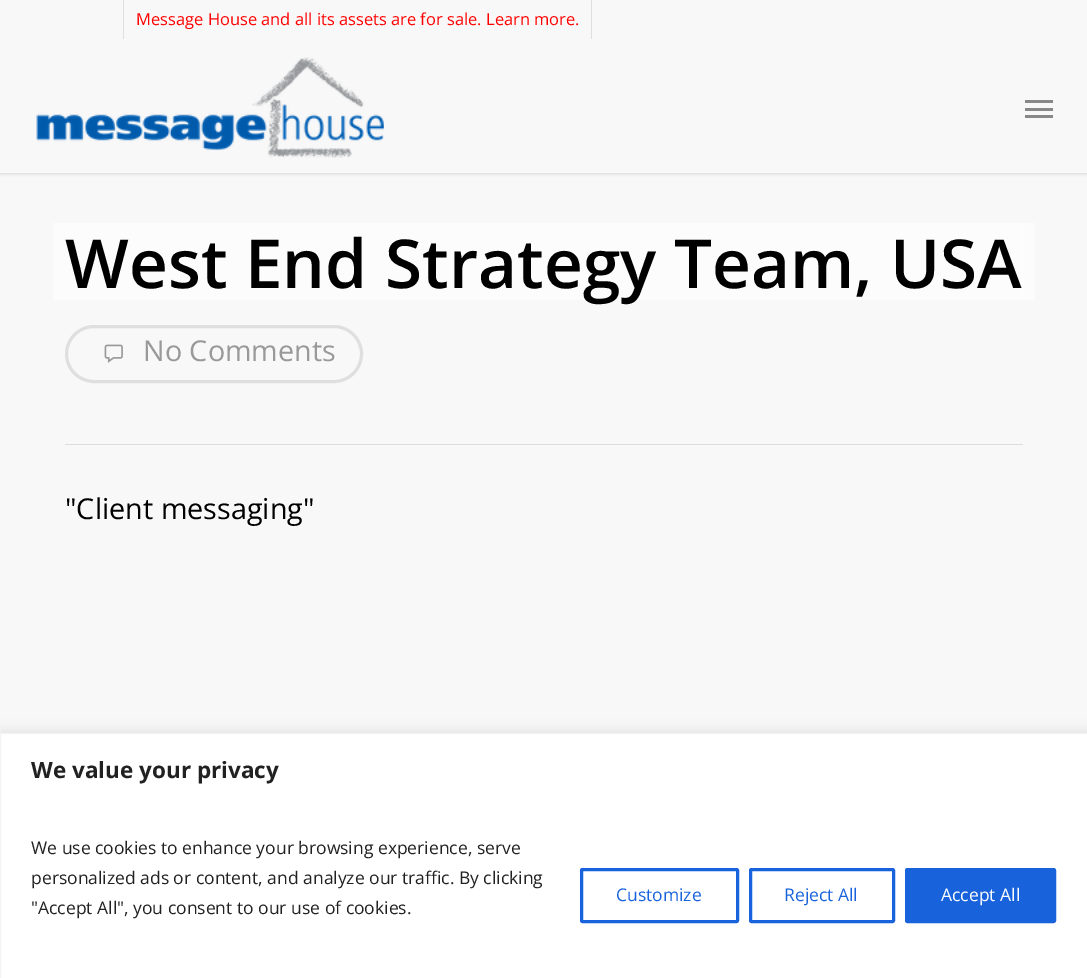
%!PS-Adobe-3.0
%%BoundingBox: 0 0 1087 978
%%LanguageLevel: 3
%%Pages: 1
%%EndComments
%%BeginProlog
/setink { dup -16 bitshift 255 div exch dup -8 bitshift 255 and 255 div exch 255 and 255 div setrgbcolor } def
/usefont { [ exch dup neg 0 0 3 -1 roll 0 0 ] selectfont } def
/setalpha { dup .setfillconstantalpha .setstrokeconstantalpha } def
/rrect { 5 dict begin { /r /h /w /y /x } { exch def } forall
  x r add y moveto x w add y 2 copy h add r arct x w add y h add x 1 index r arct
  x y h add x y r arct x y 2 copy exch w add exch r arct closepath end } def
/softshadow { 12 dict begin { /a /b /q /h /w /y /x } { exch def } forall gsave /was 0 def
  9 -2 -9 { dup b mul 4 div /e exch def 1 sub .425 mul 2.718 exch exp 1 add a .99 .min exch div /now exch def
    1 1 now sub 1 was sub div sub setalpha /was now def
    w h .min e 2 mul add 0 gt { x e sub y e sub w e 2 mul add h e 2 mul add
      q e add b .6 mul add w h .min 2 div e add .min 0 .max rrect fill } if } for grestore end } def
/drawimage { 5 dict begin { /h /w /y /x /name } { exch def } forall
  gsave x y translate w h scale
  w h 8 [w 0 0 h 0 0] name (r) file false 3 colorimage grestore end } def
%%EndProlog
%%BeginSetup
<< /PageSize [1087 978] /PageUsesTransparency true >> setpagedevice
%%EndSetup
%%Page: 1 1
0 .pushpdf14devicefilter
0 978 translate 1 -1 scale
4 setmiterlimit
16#F8F8F8 setink
0 0 1087 978 rectfill
16#000000 setink
0 0 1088 173 0 2 0.22 softshadow
[
    [0 0 1087 173 16#F8F8F8]
    [591 0 1 39 16#DFDFDF]
    [123 0 1 39 16#DFDFDF]
] { aload pop setink rectfill } forall
/OpenSans-Regular 16.5 usefont
16#FF0000 setink
136 25 moveto (Message House and all its assets are for sale. Learn more.) show
(img1.raw) 36 57 348 101 drawimage
[
    [1025 100 28 3 16#888888]
    [1025 115 28 3 16#888888]
    [1025 108 28 3 16#888888]
    [53 223 969 77 16#FCFCFC]
    [65 444 958 1 16#DDDDDD]
    [1023 223 12 77 16#FCFCFC]
    [1022 223 1 77 16#FEFEFE]
] { aload pop setink rectfill } forall
/OpenSans-SemiBold 67.5 usefont
16#000000 setink
65 288 moveto (West End Strategy Team, USA) show
16#DFDFDF setink
3 setlinewidth
66.5 326.5 295 55 27.5 rrect stroke
(img2.raw) 104 344 19 19 drawimage
/OpenSans-Regular 28.75 usefont
16#999999 setink
143 361 moveto (No Comments) show
16#000000 setink
65 519 moveto ("Client messaging") show
16#ACABAB setink
0 731 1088 247 0 6 0.3 softshadow
16#FFFFFF setink
0.5 733.5 moveto 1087.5 733.5 lineto 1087.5 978.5 lineto 0.5 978.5 lineto closepath gsave fill grestore
16#F4F4F4 setink
1 setlinewidth
stroke
/OpenSans-Bold 22.5 usefont
16#212121 setink
31 778 moveto (We value your privacy) show
/OpenSans-Regular 17.5 usefont
[
    [(We use cookies to enhance your browsing experience, serve) 31 854]
    [(personalized ads or content, and analyze our traffic. By clicking) 31 884]
    [("Accept All", you consent to our use of cookies.) 31 914]
] { aload pop moveto show } forall
16#1863DC setink
3 setlinewidth
581.5 869.5 156 52 1 rrect stroke
616 901 moveto (Customize) show
750.5 869.5 143 52 1 rrect stroke
784 901 moveto (Reject All) show
906.5 869.5 148 52 1 rrect gsave fill grestore
stroke
16#FFFFFF setink
941 901 moveto (Accept All) show
.poppdf14devicefilter showpage
%%EOF
